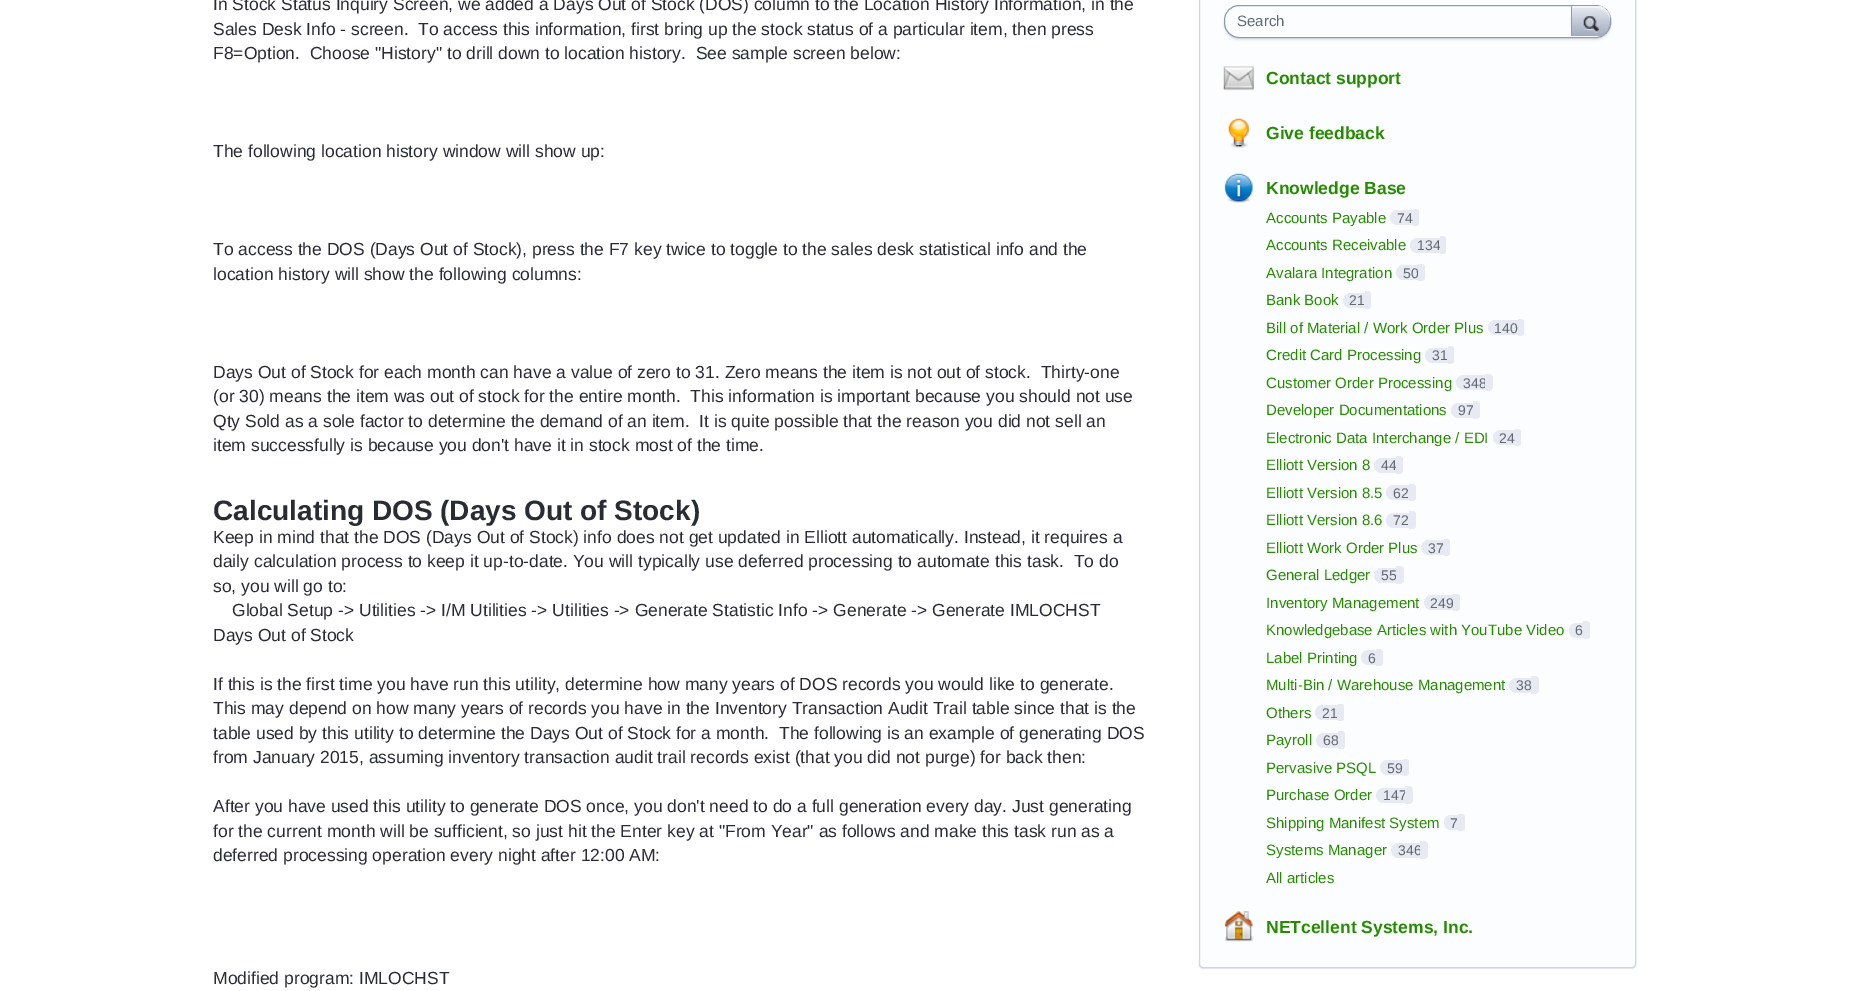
%!PS-Adobe-3.0
%%BoundingBox: 0 0 1849 991
%%LanguageLevel: 3
%%Pages: 1
%%EndComments
%%BeginProlog
/setink { dup -16 bitshift 255 div exch dup -8 bitshift 255 and 255 div exch 255 and 255 div setrgbcolor } def
/usefont { [ exch dup neg 0 0 3 -1 roll 0 0 ] selectfont } def
/setalpha { dup .setfillconstantalpha .setstrokeconstantalpha } def
/rrect { 5 dict begin { /r /h /w /y /x } { exch def } forall
  x r add y moveto x w add y 2 copy h add r arct x w add y h add x 1 index r arct
  x y h add x y r arct x y 2 copy exch w add exch r arct closepath end } def
/softshadow { 12 dict begin { /a /b /q /h /w /y /x } { exch def } forall gsave /was 0 def
  9 -2 -9 { dup b mul 4 div /e exch def 1 sub .425 mul 2.718 exch exp 1 add a .99 .min exch div /now exch def
    1 1 now sub 1 was sub div sub setalpha /was now def
    w h .min e 2 mul add 0 gt { x e sub y e sub w e 2 mul add h e 2 mul add
      q e add b .6 mul add w h .min 2 div e add .min 0 .max rrect fill } if } for grestore end } def
/drawimage { 5 dict begin { /h /w /y /x /name } { exch def } forall
  gsave x y translate w h scale
  w h 8 [w 0 0 h 0 0] name (r) file false 3 colorimage grestore end } def
%%EndProlog
%%BeginSetup
<< /PageSize [1849 991] /PageUsesTransparency true >> setpagedevice
%%EndSetup
%%Page: 1 1
0 .pushpdf14devicefilter
0 991 translate 1 -1 scale
4 setmiterlimit
16#FFFFFF setink
0 0 1849 991 rectfill
/LiberationSans-Regular 17.5 usefont
16#292C33 setink
[
    [(In Stock Status Inquiry Screen, we added a Days Out of Stock \(DOS\) column to the Location History Information, in the) 213 10]
    [(Sales Desk Info - screen.  To access this information, first bring up the stock status of a particular item, then press) 213 35]
    [(F8=Option.  Choose "History" to drill down to location history.  See sample screen below:) 213 59]
    [(The following location history window will show up:) 213 157]
    [(To access the DOS \(Days Out of Stock\), press the F7 key twice to toggle to the sales desk statistical info and the) 213 255]
    [(location history will show the following columns:) 213 280]
    [(Days Out of Stock for each month can have a value of zero to 31. Zero means the item is not out of stock.  Thirty-one) 213 378]
    [(\(or 30\) means the item was out of stock for the entire month.  This information is important because you should not use) 213 402]
    [(Qty Sold as a sole factor to determine the demand of an item.  It is quite possible that the reason you did not sell an) 213 427]
    [(item successfully is because you don't have it in stock most of the time.) 213 451]
] { aload pop moveto show } forall
/LiberationSans-Bold 28 usefont
213 520 moveto (Calculating DOS \(Days Out of Stock\)) show
/LiberationSans-Regular 17.5 usefont
[
    [(Keep in mind that the DOS \(Days Out of Stock\) info does not get updated in Elliott automatically. Instead, it requires a) 213 543]
    [(daily calculation process to keep it up-to-date. You will typically use deferred processing to automate this task.  To do) 213 567]
    [(so, you will go to:) 213 592]
    [(Global Setup -> Utilities -> I/M Utilities -> Utilities -> Generate Statistic Info -> Generate -> Generate IMLOCHST) 232 616]
    [(Days Out of Stock) 213 641]
    [(If this is the first time you have run this utility, determine how many years of DOS records you would like to generate.) 213 690]
    [(This may depend on how many years of records you have in the Inventory Transaction Audit Trail table since that is the) 213 714]
    [(table used by this utility to determine the Days Out of Stock for a month.  The following is an example of generating DOS) 213 739]
    [(from January 2015, assuming inventory transaction audit trail records exist \(that you did not purge\) for back then:) 213 763]
    [(After you have used this utility to generate DOS once, you don't need to do a full generation every day. Just generating) 213 812]
    [(for the current month will be sufficient, so just hit the Enter key at "From Year" as follows and make this task run as a) 213 837]
    [(deferred processing operation every night after 12:00 AM:) 213 861]
    [(Modified program: IMLOCHST) 213 984]
] { aload pop moveto show } forall
16#000000 setink
1199 -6 437 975 4 0.5 0.1 softshadow
16#FCFDFF setink
1199.5 -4.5 436 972 3.5 rrect gsave fill grestore
16#CFD7E6 setink
stroke
16#000000 setink
1224 8 387 32 15 1 0.1 softshadow
16#FCFDFF setink
1224.5 5.5 386 32 14.5 rrect gsave fill grestore
16#8F9BB3 setink
stroke
/LiberationSans-Regular 15 usefont
16#616973 setink
1237 26 moveto (Search) show
gsave
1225 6 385 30 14 rrect clip newpath
16#000000 setink
1571 6 40 32 15 1 0.1 softshadow
grestore
gsave 1572.5 6 moveto 1596 6 lineto 1604 6 1610 12.5 1610 20 curveto 1610 21 lineto 1610 29.5 1604 36 1596 36 curveto 1572.5 36 lineto closepath clip newpath
<< /ShadingType 2 /ColorSpace /DeviceRGB /Coords [1573 6.2 1573 36] /Extend [true true] /Function << /FunctionType 2 /Domain [0 1] /C0 [0.902 0.918 0.949] /C1 [0.635 0.675 0.749] /N 1 >> >> shfill grestore
0.5 setalpha
16#FFFFFF setink
1572.5 6 moveto 1572.5 8 lineto 1596 8 lineto 1604 8 1610 14 1610 21 curveto 1610 13 1604.5 6 1596 6 curveto closepath fill
1 setalpha
16#8F9BB3 setink
1607.5 30 moveto 1609 27.5 1610 24.5 1610 21 curveto 1610 24.5 1609.5 27.5 1607.5 30 curveto closepath fill
1571 6 1 30 rectfill
(img1.raw) 1583 16 16 17 drawimage
(img2.raw) 1223 66 31 25 drawimage
/LiberationSans-Bold 17.5 usefont
16#258C00 setink
1266 84 moveto (Contact support) show
(img3.raw) 1228 118 21 30 drawimage
1266 139 moveto (Give feedback) show
(img4.raw) 1224 173 29 30 drawimage
1266 194 moveto (Knowledge Base) show
/LiberationSans-Regular 15 usefont
1266 223 moveto (Accounts Payable) show
16#E7EAF2 setink
1397.5 210 moveto 1413 210 lineto 1413 225 lineto 1397.5 225 lineto 1393.5 225 1390 221.5 1390 217.5 curveto 1390 213.5 1393.5 210 1397.5 210 curveto closepath fill
/LiberationSans-Regular 14 usefont
16#616973 setink
1397 223 moveto (74) show
16#E7EAF2 setink
1413 209 moveto 1416 209 lineto 1417.5 209 1419 210.5 1419 212 curveto 1419 223 lineto 1419 224.5 1417.5 226 1416 226 curveto 1413 226 lineto closepath fill
/LiberationSans-Regular 15 usefont
16#258C00 setink
1266 250 moveto (Accounts Receivable) show
16#E7EAF2 setink
1417.5 238 moveto 1440 238 lineto 1440 253 lineto 1417.5 253 lineto 1413.5 253 1410 249.5 1410 245.5 curveto 1410 241.5 1413.5 238 1417.5 238 curveto closepath fill
/LiberationSans-Regular 14 usefont
16#616973 setink
1417 250 moveto (134) show
16#E7EAF2 setink
1440 236 moveto 1443 236 lineto 1444.5 236 1446 237.5 1446 239 curveto 1446 251 lineto 1446 252.5 1444.5 254 1443 254 curveto 1440 254 lineto closepath fill
/LiberationSans-Regular 15 usefont
16#258C00 setink
1266 278 moveto (Avalara Integration) show
16#E7EAF2 setink
1403.5 265 moveto 1418 265 lineto 1418 280 lineto 1403.5 280 lineto 1399.5 280 1396 276.5 1396 272.5 curveto 1396 268.5 1399.5 265 1403.5 265 curveto closepath fill
/LiberationSans-Regular 14 usefont
16#616973 setink
1403 278 moveto (50) show
16#E7EAF2 setink
1418 264 moveto 1421.5 264 lineto 1423.5 264 1425 265.5 1425 267.5 curveto 1425 277.5 lineto 1425 279.5 1423.5 281 1421.5 281 curveto 1418 281 lineto closepath fill
/LiberationSans-Regular 15 usefont
16#258C00 setink
1266 305 moveto (Bank Book) show
16#E7EAF2 setink
1350.5 293 moveto 1365 293 lineto 1365 308 lineto 1350.5 308 lineto 1346.5 308 1343 304.5 1343 300.5 curveto 1343 296.5 1346.5 293 1350.5 293 curveto closepath fill
/LiberationSans-Regular 14 usefont
16#616973 setink
1349 305 moveto (21) show
16#E7EAF2 setink
1365 291 moveto 1368 291 lineto 1369.5 291 1371 292.5 1371 294 curveto 1371 306 lineto 1371 307.5 1369.5 309 1368 309 curveto 1365 309 lineto closepath fill
/LiberationSans-Regular 15 usefont
16#258C00 setink
1266 333 moveto (Bill of Material / Work Order Plus) show
16#E7EAF2 setink
1495.5 320 moveto 1518 320 lineto 1518 335 lineto 1495.5 335 lineto 1491.5 335 1488 331.5 1488 327.5 curveto 1488 323.5 1491.5 320 1495.5 320 curveto closepath fill
/LiberationSans-Regular 14 usefont
16#616973 setink
1494 333 moveto (140) show
16#E7EAF2 setink
1518 319 moveto 1521 319 lineto 1522.5 319 1524 320.5 1524 322 curveto 1524 333 lineto 1524 334.5 1522.5 336 1521 336 curveto 1518 336 lineto closepath fill
/LiberationSans-Regular 15 usefont
16#258C00 setink
1266 360 moveto (Credit Card Processing) show
16#E7EAF2 setink
1432.5 348 moveto 1448 348 lineto 1448 363 lineto 1432.5 363 lineto 1428.5 363 1425 359.5 1425 355.5 curveto 1425 351.5 1428.5 348 1432.5 348 curveto closepath fill
/LiberationSans-Regular 14 usefont
16#616973 setink
1432 360 moveto (31) show
16#E7EAF2 setink
1448 346 moveto 1451 346 lineto 1452.5 346 1454 347.5 1454 349 curveto 1454 361 lineto 1454 362.5 1452.5 364 1451 364 curveto 1448 364 lineto closepath fill
/LiberationSans-Regular 15 usefont
16#258C00 setink
1266 388 moveto (Customer Order Processing) show
16#E7EAF2 setink
1463.5 375 moveto 1485 375 lineto 1485 390 lineto 1463.5 390 lineto 1459.5 390 1456 386.5 1456 382.5 curveto 1456 378.5 1459.5 375 1463.5 375 curveto closepath fill
/LiberationSans-Regular 14 usefont
16#616973 setink
1463 388 moveto (348) show
16#E7EAF2 setink
1485 374 moveto 1489 374 lineto 1491 374 1493 376 1493 378 curveto 1493 387 lineto 1493 389 1491 391 1489 391 curveto 1485 391 lineto closepath fill
/LiberationSans-Regular 15 usefont
16#258C00 setink
1266 415 moveto (Developer Documentations) show
16#E7EAF2 setink
1458.5 403 moveto 1473 403 lineto 1473 418 lineto 1458.5 418 lineto 1454.5 418 1451 414.5 1451 410.5 curveto 1451 406.5 1454.5 403 1458.5 403 curveto closepath fill
/LiberationSans-Regular 14 usefont
16#616973 setink
1458 415 moveto (97) show
16#E7EAF2 setink
1473 401 moveto 1476.5 401 lineto 1478.5 401 1480 402.5 1480 404.5 curveto 1480 415.5 lineto 1480 417.5 1478.5 419 1476.5 419 curveto 1473 419 lineto closepath fill
/LiberationSans-Regular 15 usefont
16#258C00 setink
1266 443 moveto (Electronic Data Interchange / EDI) show
16#E7EAF2 setink
1500.5 430 moveto 1515 430 lineto 1515 445 lineto 1500.5 445 lineto 1496.5 445 1493 441.5 1493 437.5 curveto 1493 433.5 1496.5 430 1500.5 430 curveto closepath fill
/LiberationSans-Regular 14 usefont
16#616973 setink
1499 443 moveto (24) show
16#E7EAF2 setink
1515 429 moveto 1518 429 lineto 1519.5 429 1521 430.5 1521 432 curveto 1521 443 lineto 1521 444.5 1519.5 446 1518 446 curveto 1515 446 lineto closepath fill
/LiberationSans-Regular 15 usefont
16#258C00 setink
1266 470 moveto (Elliott Version 8) show
16#E7EAF2 setink
1381.5 458 moveto 1396 458 lineto 1396 473 lineto 1381.5 473 lineto 1377.5 473 1374 469.5 1374 465.5 curveto 1374 461.5 1377.5 458 1381.5 458 curveto closepath fill
/LiberationSans-Regular 14 usefont
16#616973 setink
1381 470 moveto (44) show
16#E7EAF2 setink
1396 456 moveto 1399.5 456 lineto 1401.5 456 1403 457.5 1403 459.5 curveto 1403 470.5 lineto 1403 472.5 1401.5 474 1399.5 474 curveto 1396 474 lineto closepath fill
/LiberationSans-Regular 15 usefont
16#258C00 setink
1266 498 moveto (Elliott Version 8.5) show
16#E7EAF2 setink
1393.5 485 moveto 1409 485 lineto 1409 500 lineto 1393.5 500 lineto 1389.5 500 1386 496.5 1386 492.5 curveto 1386 488.5 1389.5 485 1393.5 485 curveto closepath fill
/LiberationSans-Regular 14 usefont
16#616973 setink
1393 498 moveto (62) show
16#E7EAF2 setink
1409 484 moveto 1412.5 484 lineto 1414.5 484 1416 485.5 1416 487.5 curveto 1416 497.5 lineto 1416 499.5 1414.5 501 1412.5 501 curveto 1409 501 lineto closepath fill
/LiberationSans-Regular 15 usefont
16#258C00 setink
1266 525 moveto (Elliott Version 8.6) show
16#E7EAF2 setink
1393.5 513 moveto 1409 513 lineto 1409 528 lineto 1393.5 528 lineto 1389.5 528 1386 524.5 1386 520.5 curveto 1386 516.5 1389.5 513 1393.5 513 curveto closepath fill
/LiberationSans-Regular 14 usefont
16#616973 setink
1393 525 moveto (72) show
16#E7EAF2 setink
1409 511 moveto 1412.5 511 lineto 1414.5 511 1416 512.5 1416 514.5 curveto 1416 525.5 lineto 1416 527.5 1414.5 529 1412.5 529 curveto 1409 529 lineto closepath fill
/LiberationSans-Regular 15 usefont
16#258C00 setink
1266 553 moveto (Elliott Work Order Plus) show
16#E7EAF2 setink
1428.5 540 moveto 1444 540 lineto 1444 555 lineto 1428.5 555 lineto 1424.5 555 1421 551.5 1421 547.5 curveto 1421 543.5 1424.5 540 1428.5 540 curveto closepath fill
/LiberationSans-Regular 14 usefont
16#616973 setink
1428 553 moveto (37) show
16#E7EAF2 setink
1444 539 moveto 1447 539 lineto 1448.5 539 1450 540.5 1450 542 curveto 1450 553 lineto 1450 554.5 1448.5 556 1447 556 curveto 1444 556 lineto closepath fill
/LiberationSans-Regular 15 usefont
16#258C00 setink
1266 580 moveto (General Ledger) show
16#E7EAF2 setink
1381.5 568 moveto 1396 568 lineto 1396 583 lineto 1381.5 583 lineto 1377.5 583 1374 579.5 1374 575.5 curveto 1374 571.5 1377.5 568 1381.5 568 curveto closepath fill
/LiberationSans-Regular 14 usefont
16#616973 setink
1381 580 moveto (55) show
16#E7EAF2 setink
1396 566 moveto 1400 566 lineto 1402 566 1404 568 1404 570 curveto 1404 580 lineto 1404 582 1402 584 1400 584 curveto 1396 584 lineto closepath fill
/LiberationSans-Regular 15 usefont
16#258C00 setink
1266 608 moveto (Inventory Management) show
16#E7EAF2 setink
1431.5 595 moveto 1453 595 lineto 1453 610 lineto 1431.5 610 lineto 1427.5 610 1424 606.5 1424 602.5 curveto 1424 598.5 1427.5 595 1431.5 595 curveto closepath fill
/LiberationSans-Regular 14 usefont
16#616973 setink
1430 608 moveto (249) show
16#E7EAF2 setink
1453 594 moveto 1456.5 594 lineto 1458.5 594 1460 595.5 1460 597.5 curveto 1460 607.5 lineto 1460 609.5 1458.5 611 1456.5 611 curveto 1453 611 lineto closepath fill
/LiberationSans-Regular 15 usefont
16#258C00 setink
1266 635 moveto (Knowledgebase Articles with YouTube Video) show
16#E7EAF2 setink
1576 623 moveto 1583 623 lineto 1583 638 lineto 1576 638 lineto 1572 638 1569 635 1569 631 curveto 1569 630 lineto 1569 626 1572 623 1576 623 curveto closepath fill
/LiberationSans-Regular 14 usefont
16#616973 setink
1575 635 moveto (6) show
16#E7EAF2 setink
1583 621 moveto 1586.5 621 lineto 1588.5 621 1590 622.5 1590 624.5 curveto 1590 635.5 lineto 1590 637.5 1588.5 639 1586.5 639 curveto 1583 639 lineto closepath fill
/LiberationSans-Regular 15 usefont
16#258C00 setink
1266 663 moveto (Label Printing) show
16#E7EAF2 setink
1368.5 650 moveto 1376 650 lineto 1376 665 lineto 1368.5 665 lineto 1364.5 665 1361 661.5 1361 657.5 curveto 1361 653.5 1364.5 650 1368.5 650 curveto closepath fill
/LiberationSans-Regular 14 usefont
16#616973 setink
1368 663 moveto (6) show
16#E7EAF2 setink
1376 649 moveto 1379.5 649 lineto 1381.5 649 1383 650.5 1383 652.5 curveto 1383 662.5 lineto 1383 664.5 1381.5 666 1379.5 666 curveto 1376 666 lineto closepath fill
/LiberationSans-Regular 15 usefont
16#258C00 setink
1266 690 moveto (Multi-Bin / Warehouse Management) show
16#E7EAF2 setink
1516.5 678 moveto 1531 678 lineto 1531 693 lineto 1516.5 693 lineto 1512.5 693 1509 689.5 1509 685.5 curveto 1509 681.5 1512.5 678 1516.5 678 curveto closepath fill
/LiberationSans-Regular 14 usefont
16#616973 setink
1516 690 moveto (38) show
16#E7EAF2 setink
1531 676 moveto 1535 676 lineto 1537 676 1539 678 1539 680 curveto 1539 690 lineto 1539 692 1537 694 1535 694 curveto 1531 694 lineto closepath fill
/LiberationSans-Regular 15 usefont
16#258C00 setink
1266 718 moveto (Others) show
16#E7EAF2 setink
1322.5 705 moveto 1338 705 lineto 1338 720 lineto 1322.5 720 lineto 1318.5 720 1315 716.5 1315 712.5 curveto 1315 708.5 1318.5 705 1322.5 705 curveto closepath fill
/LiberationSans-Regular 14 usefont
16#616973 setink
1322 718 moveto (21) show
16#E7EAF2 setink
1338 704 moveto 1341 704 lineto 1342.5 704 1344 705.5 1344 707 curveto 1344 718 lineto 1344 719.5 1342.5 721 1341 721 curveto 1338 721 lineto closepath fill
/LiberationSans-Regular 15 usefont
16#258C00 setink
1266 745 moveto (Payroll) show
16#E7EAF2 setink
1323.5 733 moveto 1338 733 lineto 1338 748 lineto 1323.5 748 lineto 1319.5 748 1316 744.5 1316 740.5 curveto 1316 736.5 1319.5 733 1323.5 733 curveto closepath fill
/LiberationSans-Regular 14 usefont
16#616973 setink
1323 745 moveto (68) show
16#E7EAF2 setink
1338 731 moveto 1341.5 731 lineto 1343.5 731 1345 732.5 1345 734.5 curveto 1345 745.5 lineto 1345 747.5 1343.5 749 1341.5 749 curveto 1338 749 lineto closepath fill
/LiberationSans-Regular 15 usefont
16#258C00 setink
1266 773 moveto (Pervasive PSQL) show
16#E7EAF2 setink
1387.5 760 moveto 1403 760 lineto 1403 775 lineto 1387.5 775 lineto 1383.5 775 1380 771.5 1380 767.5 curveto 1380 763.5 1383.5 760 1387.5 760 curveto closepath fill
/LiberationSans-Regular 14 usefont
16#616973 setink
1387 773 moveto (59) show
16#E7EAF2 setink
1403 759 moveto 1406 759 lineto 1407.5 759 1409 760.5 1409 762 curveto 1409 773 lineto 1409 774.5 1407.5 776 1406 776 curveto 1403 776 lineto closepath fill
/LiberationSans-Regular 15 usefont
16#258C00 setink
1266 800 moveto (Purchase Order) show
16#E7EAF2 setink
1383.5 788 moveto 1405 788 lineto 1405 803 lineto 1383.5 803 lineto 1379.5 803 1376 799.5 1376 795.5 curveto 1376 791.5 1379.5 788 1383.5 788 curveto closepath fill
/LiberationSans-Regular 14 usefont
16#616973 setink
1383 800 moveto (147) show
16#E7EAF2 setink
1405 786 moveto 1409 786 lineto 1411 786 1413 788 1413 790 curveto 1413 800 lineto 1413 802 1411 804 1409 804 curveto 1405 804 lineto closepath fill
/LiberationSans-Regular 15 usefont
16#258C00 setink
1266 828 moveto (Shipping Manifest System) show
16#E7EAF2 setink
1451 815 moveto 1458 815 lineto 1458 830 lineto 1451 830 lineto 1447 830 1444 827 1444 823 curveto 1444 822 lineto 1444 818 1447 815 1451 815 curveto closepath fill
/LiberationSans-Regular 14 usefont
16#616973 setink
1450 828 moveto (7) show
16#E7EAF2 setink
1458 814 moveto 1461.5 814 lineto 1463.5 814 1465 815.5 1465 817.5 curveto 1465 827.5 lineto 1465 829.5 1463.5 831 1461.5 831 curveto 1458 831 lineto closepath fill
/LiberationSans-Regular 15 usefont
16#258C00 setink
1266 855 moveto (Systems Manager) show
16#E7EAF2 setink
1398.5 843 moveto 1420 843 lineto 1420 858 lineto 1398.5 858 lineto 1394.5 858 1391 854.5 1391 850.5 curveto 1391 846.5 1394.5 843 1398.5 843 curveto closepath fill
/LiberationSans-Regular 14 usefont
16#616973 setink
1398 855 moveto (346) show
16#E7EAF2 setink
1420 841 moveto 1424 841 lineto 1426 841 1428 843 1428 845 curveto 1428 855 lineto 1428 857 1426 859 1424 859 curveto 1420 859 lineto closepath fill
/LiberationSans-Regular 15 usefont
16#258C00 setink
1266 883 moveto (All articles) show
(img5.raw) 1224 911 30 31 drawimage
/LiberationSans-Bold 17.5 usefont
1266 933 moveto (NETcellent Systems, Inc.) show
.poppdf14devicefilter showpage
%%EOF
